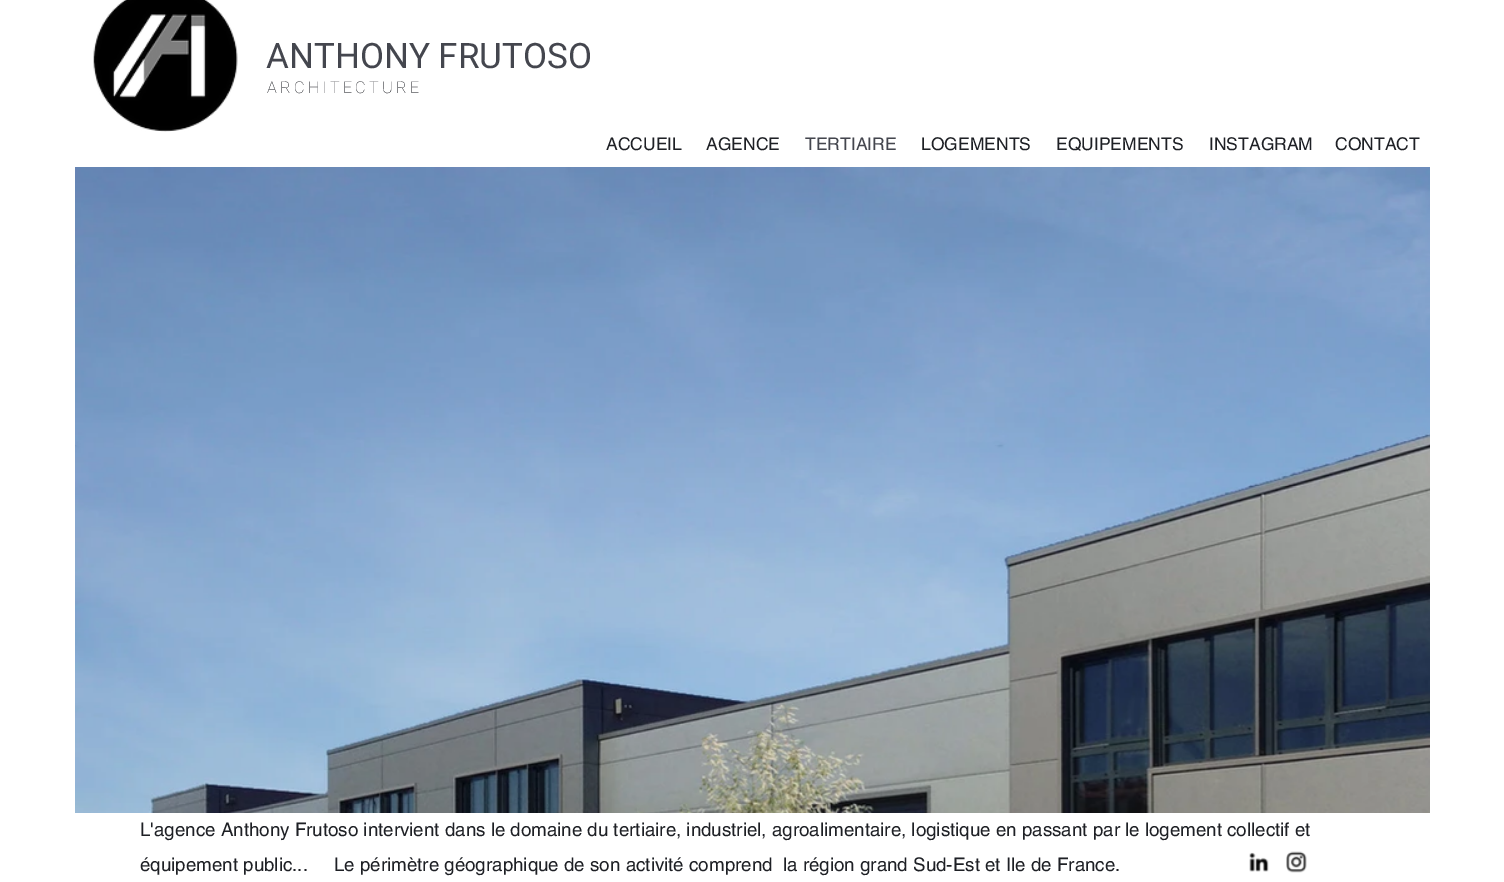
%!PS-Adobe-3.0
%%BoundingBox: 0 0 1504 882
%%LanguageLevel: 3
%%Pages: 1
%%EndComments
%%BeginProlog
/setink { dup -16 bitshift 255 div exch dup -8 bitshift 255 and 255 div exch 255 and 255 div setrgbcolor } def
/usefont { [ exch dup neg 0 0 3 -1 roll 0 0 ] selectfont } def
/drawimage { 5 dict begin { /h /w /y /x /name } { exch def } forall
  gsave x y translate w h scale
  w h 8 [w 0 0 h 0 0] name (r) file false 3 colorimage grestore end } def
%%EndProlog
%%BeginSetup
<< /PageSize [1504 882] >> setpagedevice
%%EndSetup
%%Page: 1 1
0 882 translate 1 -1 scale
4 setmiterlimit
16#FFFFFF setink
0 0 1504 882 rectfill
(img1.raw) 93 0 145 132 drawimage
/Roboto-Regular 35 usefont
16#44464E setink
266 68 moveto (ANTHONY FRUTOSO) show
/Roboto-Thin 16.25 usefont
16#1E2025 setink
267 93 moveto 3.25 0 (ARCHITECTURE) ashow
/helvetica-Regular 17.5 usefont
606 150 moveto (ACCUEIL) show
706 150 moveto (AGENCE) show
16#44464E setink
805 150 moveto (TERTIAIRE) show
16#1E2025 setink
[
    [(LOGEMENTS) 921 150]
    [(EQUIPEMENTS) 1056 150]
    [(INSTAGRAM) 1209 150]
    [(CONTACT) 1335 150]
] { aload pop moveto show } forall
(img2.raw) 75 167 1355 646 drawimage
/helvetica-Regular 18.75 usefont
140 836 moveto (L'agence Anthony Frutoso intervient dans le domaine du tertiaire, industriel, agroalimentaire, logistique en passant par le logement collectif et) show
140 871 moveto (équipement public...     Le périmètre géographique de son activité comprend  la région grand Sud-Est et Ile de France.) show
(img3.raw) 1249 852 20 20 drawimage
(img4.raw) 1286 851 21 22 drawimage
showpage
%%EOF
